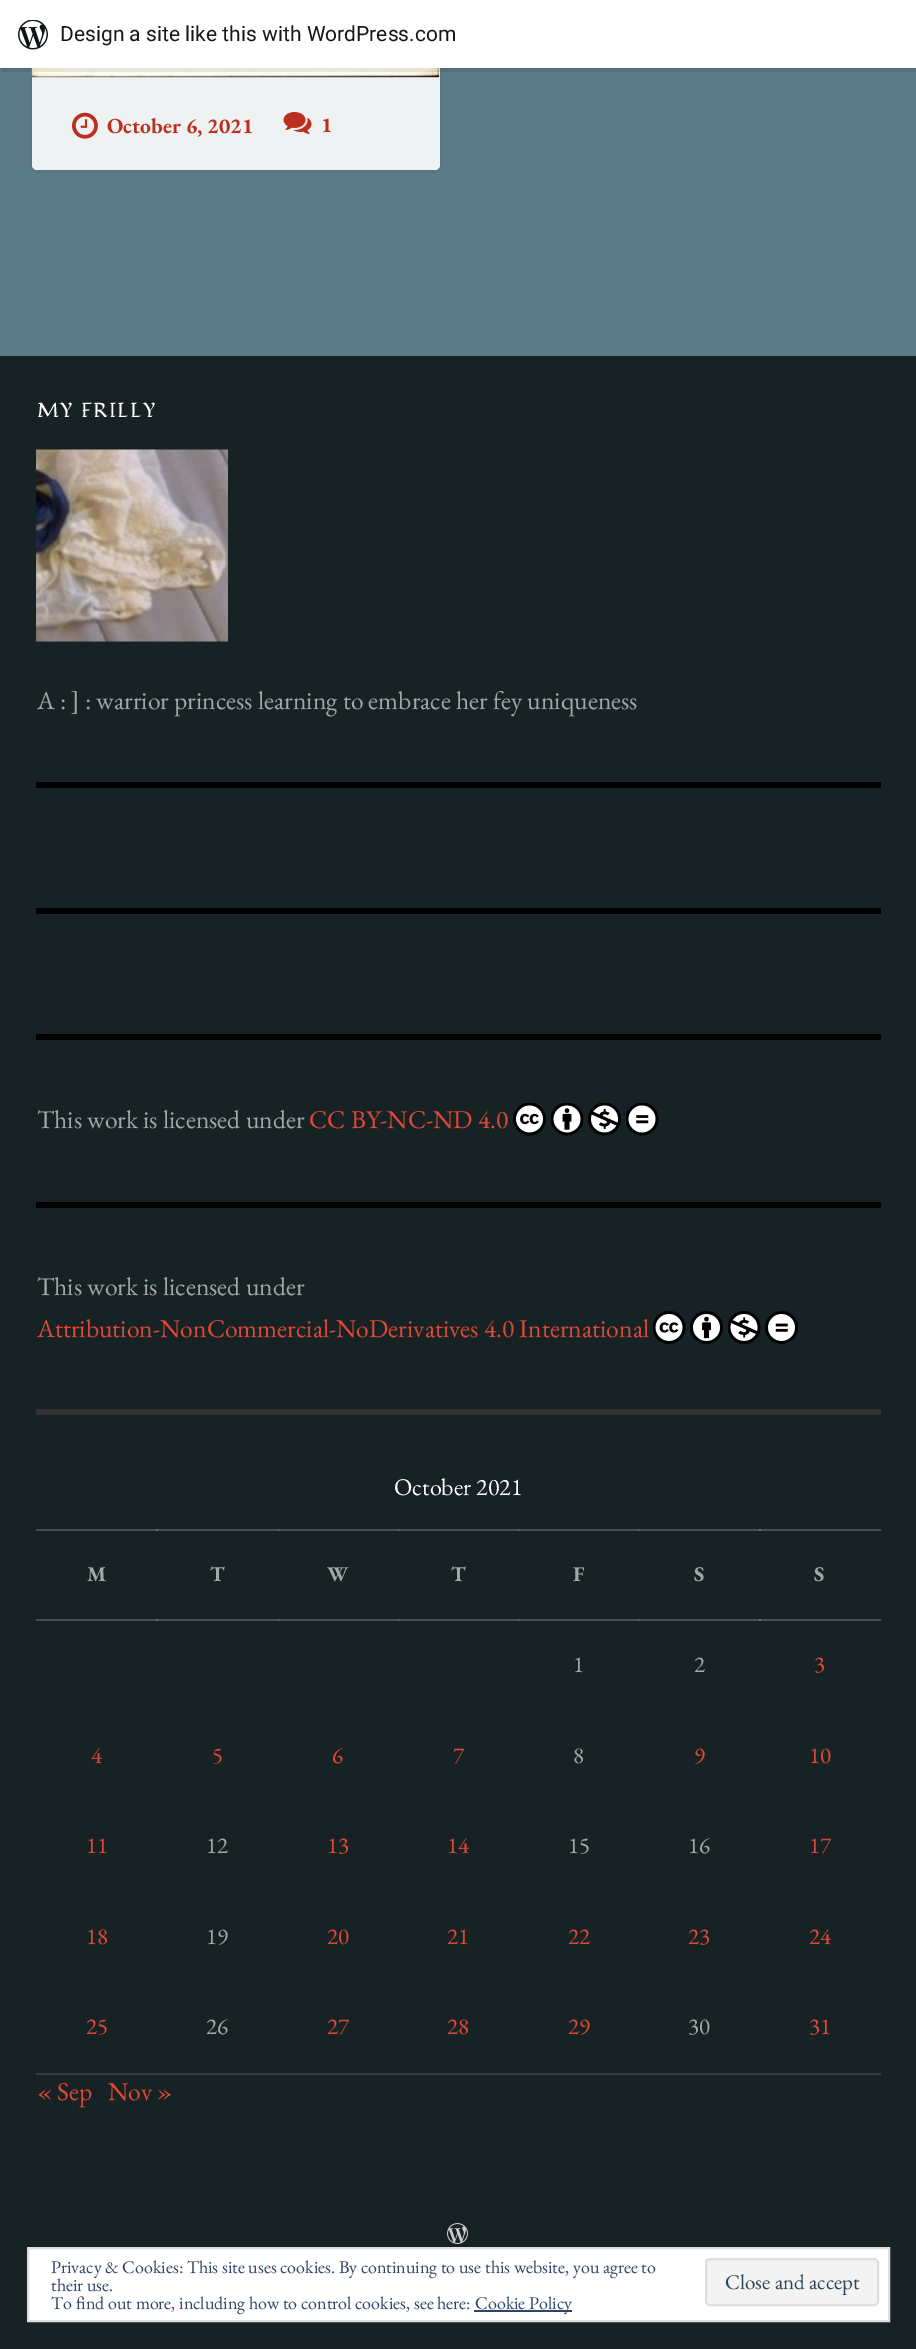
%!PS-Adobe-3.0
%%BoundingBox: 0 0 916 2349
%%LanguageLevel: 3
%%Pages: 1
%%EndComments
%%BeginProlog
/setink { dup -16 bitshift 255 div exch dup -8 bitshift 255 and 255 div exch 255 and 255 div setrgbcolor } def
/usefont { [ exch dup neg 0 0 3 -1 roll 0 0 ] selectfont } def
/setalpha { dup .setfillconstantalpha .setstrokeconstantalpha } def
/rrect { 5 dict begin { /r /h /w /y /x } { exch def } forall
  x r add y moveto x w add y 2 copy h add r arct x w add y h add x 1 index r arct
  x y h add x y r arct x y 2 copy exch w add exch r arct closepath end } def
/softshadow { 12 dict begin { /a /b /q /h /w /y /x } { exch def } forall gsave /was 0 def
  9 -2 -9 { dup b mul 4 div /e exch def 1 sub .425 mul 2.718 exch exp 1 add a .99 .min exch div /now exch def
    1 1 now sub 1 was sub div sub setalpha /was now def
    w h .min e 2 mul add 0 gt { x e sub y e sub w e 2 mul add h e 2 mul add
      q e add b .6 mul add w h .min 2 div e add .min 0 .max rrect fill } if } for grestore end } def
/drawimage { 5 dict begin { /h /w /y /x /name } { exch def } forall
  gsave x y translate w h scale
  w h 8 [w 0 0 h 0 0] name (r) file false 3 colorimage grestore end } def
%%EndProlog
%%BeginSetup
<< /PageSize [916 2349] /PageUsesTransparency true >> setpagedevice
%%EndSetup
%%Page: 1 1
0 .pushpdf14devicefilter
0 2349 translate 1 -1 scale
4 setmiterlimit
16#5B7B89 setink
0 0 916 2349 rectfill
16#000000 setink
32 -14 408 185 5 3 0.1 softshadow
16#FFFFFF setink
32 -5 408 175 5 rrect fill
(img2.raw) 31 68 409 10 drawimage
16#000000 setink
0 2 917 67 0 1.5 0.05 softshadow
0.08 setalpha
2 68 moveto 2 72 lineto 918 72 lineto 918 5 lineto 916 5 lineto 916 68 lineto closepath fill
1 setalpha
16#FFFFFF setink
0 0 916 68 rectfill
(img1.raw) 18 20 30 30 drawimage
/Roboto-Regular 21 usefont
16#171717 setink
60 41 moveto (Design a site like this with WordPress.com) show
0.1 setalpha
16#5B7B89 setink
32 78 moveto 440 78 lineto 440 165 lineto 440 168 438 170 435 170 curveto 37 170 lineto 34 170 32 168 32 165 curveto closepath fill
1 setalpha
(img3.raw) 72 112 26 27 drawimage
/EBGaramond-Bold 21.5 usefont
16#BA2F1D setink
107 133 moveto (October 6, 2021) show
(img4.raw) 283 111 29 23 drawimage
321 132 moveto (1) show
[
    [0 356 916 1993 16#172225]
    [36 1619 845 2 16#454E51]
    [36 1529 845 2 16#454E51]
    [156 1619 2 2 16#6A7174]
    [156 1529 2 2 16#6A7174]
    [278 1619 1 2 16#6A7174]
    [278 1529 1 2 16#6A7174]
    [398 1619 1 2 16#6A7174]
    [398 1529 1 2 16#6A7174]
    [518 1619 1 2 16#6A7174]
    [518 1529 1 2 16#6A7174]
    [638 1619 1 2 16#6A7174]
    [638 1529 1 2 16#6A7174]
] { aload pop setink rectfill } forall
/Fondamento-Regular 20.25 usefont
16#FFFFFF setink
37 417 moveto 1.5 0 (MY FRILLY) ashow
(img5.raw) 36 449 192 193 drawimage
/EBGaramond-Regular 25.65 usefont
16#A2A7A8 setink
37 709 moveto (A : ] : warrior princess learning to embrace her fey uniqueness) show
[
    [36 782 845 6 16#000000]
    [36 908 845 6 16#000000]
    [36 1034 845 6 16#000000]
] { aload pop setink rectfill } forall
16#A2A7A8 setink
37 1128 moveto (This work is licensed under) show
16#DF4834 setink
309 1128 moveto (CC BY-NC-ND 4.0) show
(img6.raw) 513 1103 33 33 drawimage
(img7.raw) 551 1103 33 33 drawimage
(img8.raw) 588 1103 33 33 drawimage
(img9.raw) 626 1103 33 33 drawimage
16#000000 setink
36 1202 845 6 rectfill
16#A2A7A8 setink
37 1295 moveto (This work is licensed under) show
16#DF4834 setink
37 1337 moveto (Attribution-NonCommercial-NoDerivatives 4.0 International) show
(img10.raw) 653 1311 33 33 drawimage
(img11.raw) 690 1311 33 33 drawimage
(img12.raw) 728 1311 33 33 drawimage
(img13.raw) 765 1311 33 33 drawimage
16#333333 setink
36 1409 845 6 rectfill
/EBGaramond-Regular 24 usefont
16#FFFFFF setink
394 1495 moveto (October 2021) show
/EBGaramond-Bold 21 usefont
16#A2A7A8 setink
[
    [(M) 87 1581]
    [(T) 210 1581]
    [(W) 327 1581]
    [(T) 451 1581]
    [(F) 573 1581]
    [(S) 694 1581]
] { aload pop moveto show } forall
16#6A7174 setink
759 1529 2 2 rectfill
759 1619 2 2 rectfill
16#A2A7A8 setink
814 1581 moveto (S) show
16#3B3B3B setink
36 2073 845 2 rectfill
/EBGaramond-Regular 23 usefont
16#A2A7A8 setink
573 1672 moveto (1) show
694 1672 moveto (2) show
16#DF4834 setink
[
    [(3) 814 1672]
    [(4) 91 1763]
    [(5) 212 1763]
    [(6) 332 1763]
    [(7) 453 1763]
] { aload pop moveto show } forall
16#A2A7A8 setink
573 1763 moveto (8) show
16#DF4834 setink
[
    [(9) 694 1763]
    [(10) 809 1763]
    [(11) 86 1853]
] { aload pop moveto show } forall
16#A2A7A8 setink
206 1853 moveto (12) show
16#DF4834 setink
327 1853 moveto (13) show
447 1853 moveto (14) show
16#A2A7A8 setink
568 1853 moveto (15) show
688 1853 moveto (16) show
16#DF4834 setink
809 1853 moveto (17) show
86 1944 moveto (18) show
16#A2A7A8 setink
206 1944 moveto (19) show
16#DF4834 setink
[
    [(20) 327 1944]
    [(21) 447 1944]
    [(22) 568 1944]
    [(23) 688 1944]
    [(24) 809 1944]
    [(25) 86 2034]
] { aload pop moveto show } forall
16#A2A7A8 setink
206 2034 moveto (26) show
16#DF4834 setink
[
    [(27) 327 2034]
    [(28) 447 2034]
    [(29) 568 2034]
] { aload pop moveto show } forall
16#A2A7A8 setink
688 2034 moveto (30) show
16#DF4834 setink
809 2034 moveto (31) show
/EBGaramond-Regular 25.65 usefont
37 2100 moveto (« Sep) show
108 2100 moveto (Nov ») show
(img14.raw) 447 2223 21 21 drawimage
16#FFFFFF setink
28 2248 moveto 889 2248 lineto 889 2321 lineto 28 2321 lineto closepath gsave fill grestore
16#DEDEDE setink
2 setlinewidth
stroke
/EBGaramond-Regular 18 usefont
16#2E4467 setink
51 2273 moveto (Privacy & Cookies: This site uses cookies. By continuing to use this website, you agree to) show
51 2291 moveto (their use.) show
16#F3F3F3 setink
706 2259 172 46 4 rrect gsave fill grestore
16#DEDEDE setink
stroke
/EBGaramond-Regular 21 usefont
16#2E4453 setink
725 2289 moveto (Close and accept) show
/EBGaramond-Regular 18 usefont
16#2E4467 setink
51 2309 moveto (To find out more, including how to control cookies, see here:) show
474 2310 98 2 rectfill
475 2309 moveto (Cookie Policy) show
.poppdf14devicefilter showpage
%%EOF
